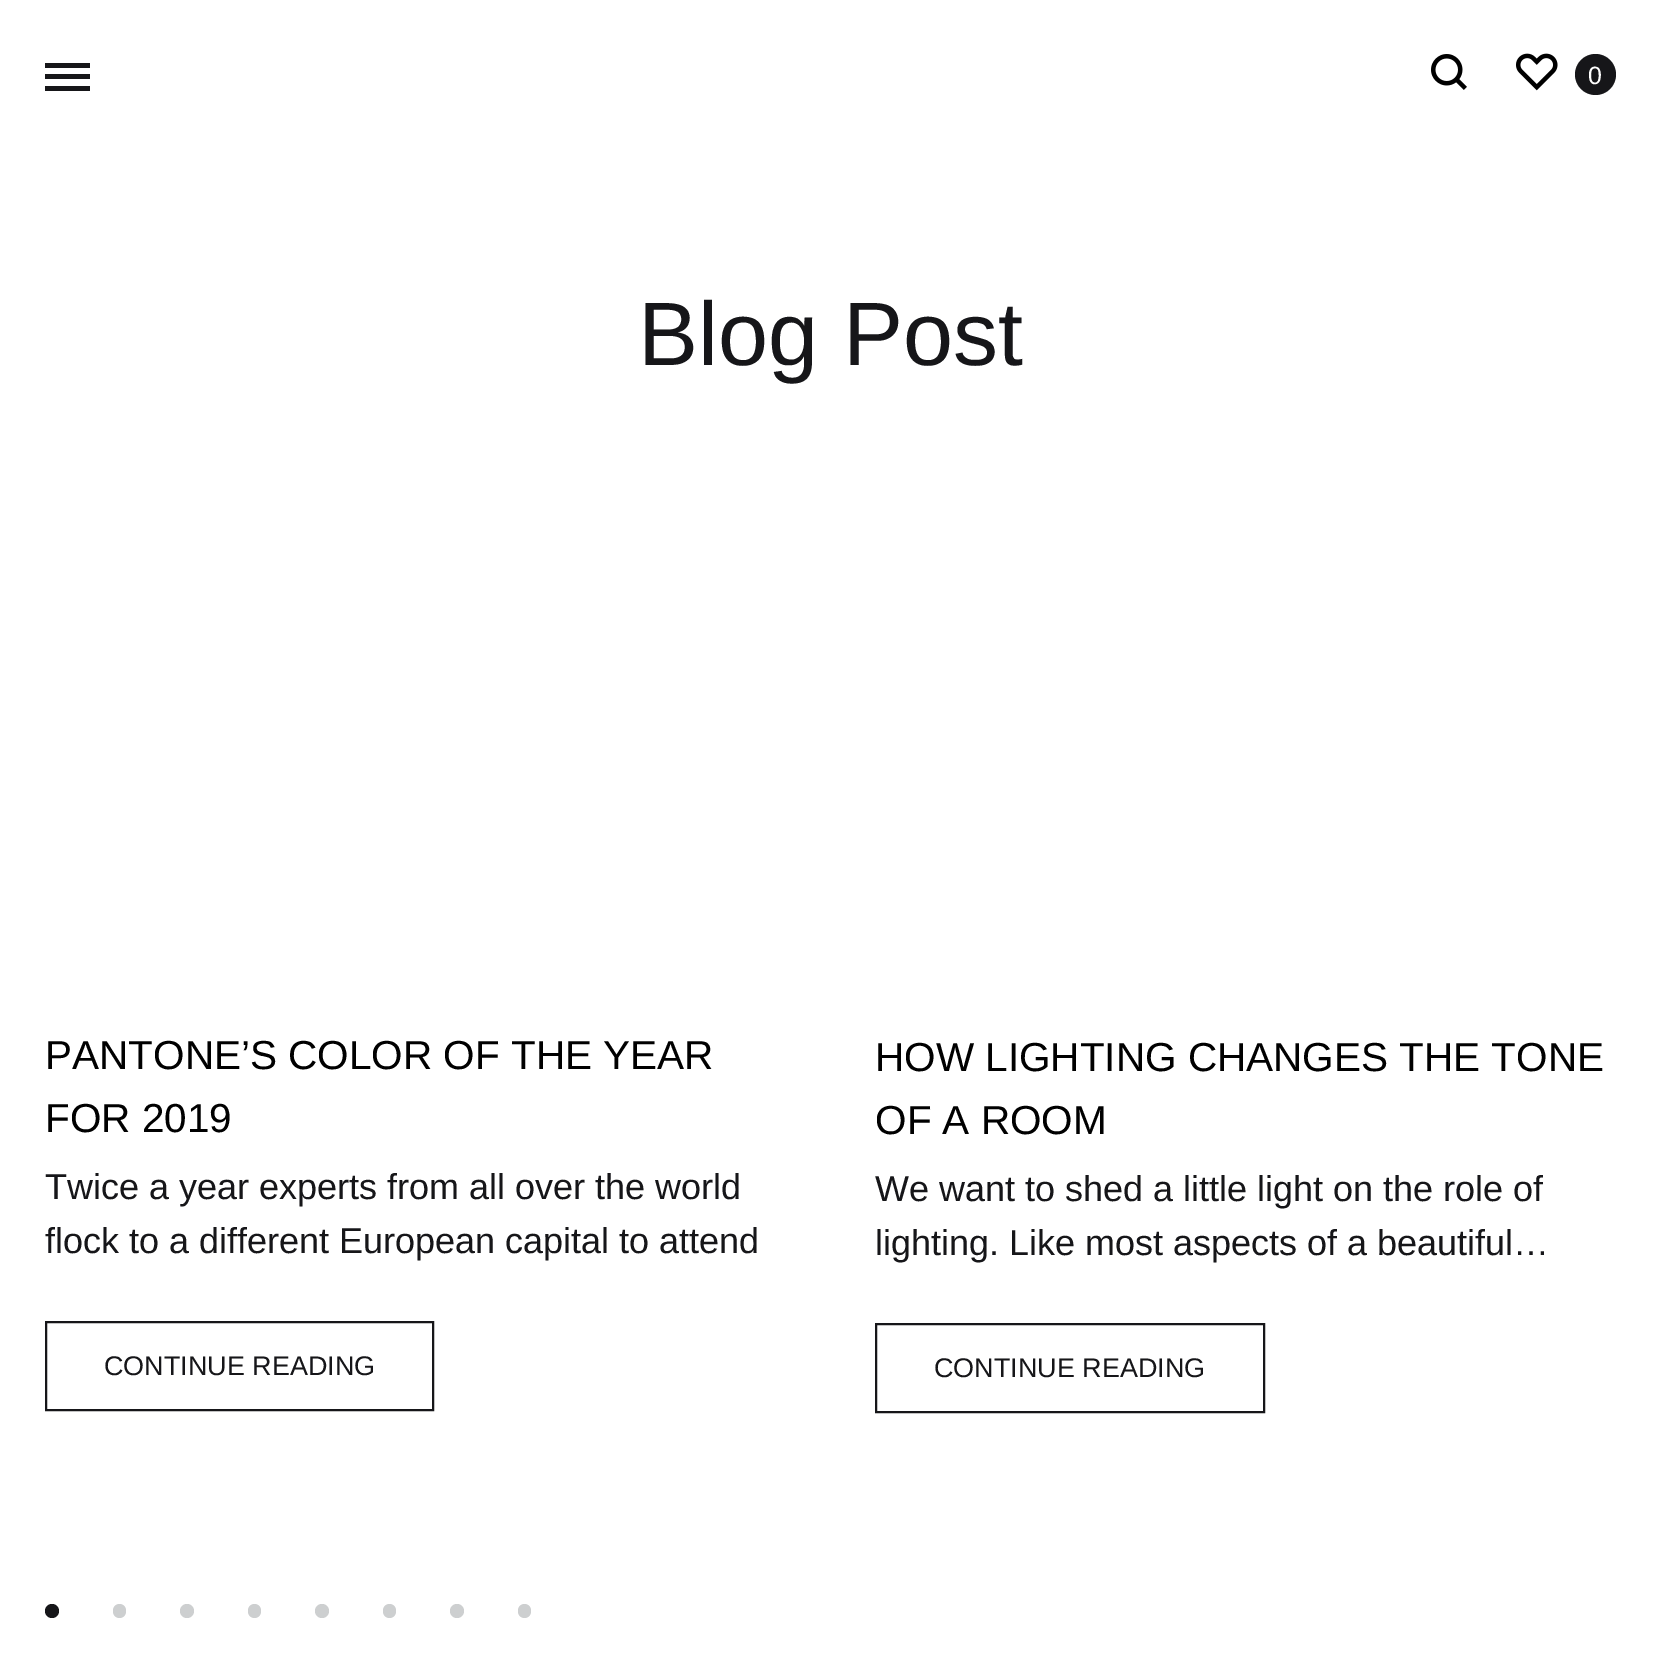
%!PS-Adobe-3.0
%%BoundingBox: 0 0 1660 1658
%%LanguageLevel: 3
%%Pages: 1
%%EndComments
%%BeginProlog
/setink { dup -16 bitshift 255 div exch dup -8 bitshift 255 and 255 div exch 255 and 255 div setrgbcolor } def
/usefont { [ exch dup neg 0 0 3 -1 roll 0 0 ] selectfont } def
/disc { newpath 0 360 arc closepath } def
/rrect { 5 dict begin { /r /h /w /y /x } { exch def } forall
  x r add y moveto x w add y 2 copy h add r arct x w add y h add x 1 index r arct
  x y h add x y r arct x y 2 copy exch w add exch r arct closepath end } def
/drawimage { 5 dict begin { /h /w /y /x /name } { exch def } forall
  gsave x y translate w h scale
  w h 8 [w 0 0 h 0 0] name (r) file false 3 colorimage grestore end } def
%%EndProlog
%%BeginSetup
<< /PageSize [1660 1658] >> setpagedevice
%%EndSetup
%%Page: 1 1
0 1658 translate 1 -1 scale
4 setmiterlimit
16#FFFFFF setink
0 0 1660 1658 rectfill
[
    [45 74 45 5 16#161619]
    [45 63 45 5 16#161619]
    [45 86 45 5 16#161619]
] { aload pop setink rectfill } forall
(img1.raw) 1431 54 36 36 drawimage
(img2.raw) 1516 53 42 38 drawimage
1595.5 74.5 20.5 disc fill
/LiberationSans-Regular 25 usefont
16#FFFFFF setink
1588 84 moveto (0) show
/LiberationSans-Regular 90 usefont
16#161619 setink
638 365 moveto (Blog Post) show
/LiberationSans-Regular 40.5 usefont
16#000000 setink
45 1069 moveto (PANTONE’S COLOR OF THE YEAR) show
45 1132 moveto (FOR 2019) show
/LiberationSans-Regular 36 usefont
16#161619 setink
45 1199 moveto (Twice a year experts from all over the world) show
45 1253 moveto (flock to a different European capital to attend) show
2 setlinewidth
46 1322 387 88 rectstroke
/LiberationSans-Regular 27 usefont
104 1375 moveto (CONTINUE READING) show
/LiberationSans-Regular 40.5 usefont
16#000000 setink
875 1071 moveto (HOW LIGHTING CHANGES THE TONE) show
875 1134 moveto (OF A ROOM) show
/LiberationSans-Regular 36 usefont
16#161619 setink
875 1201 moveto (We want to shed a little light on the role of) show
875 1255 moveto (lighting. Like most aspects of a beautiful…) show
876 1324 388 88 rectstroke
/LiberationSans-Regular 27 usefont
934 1377 moveto (CONTINUE READING) show
52 1611 7 disc fill
16#CDCFD0 setink
113 1604 13 14 6.5 rrect fill
187 1611 7 disc fill
248 1604 13 14 6.5 rrect fill
322 1611 7 disc fill
383 1604 13 14 6.5 rrect fill
457 1611 7 disc fill
518 1604 13 14 6.5 rrect fill
showpage
%%EOF
